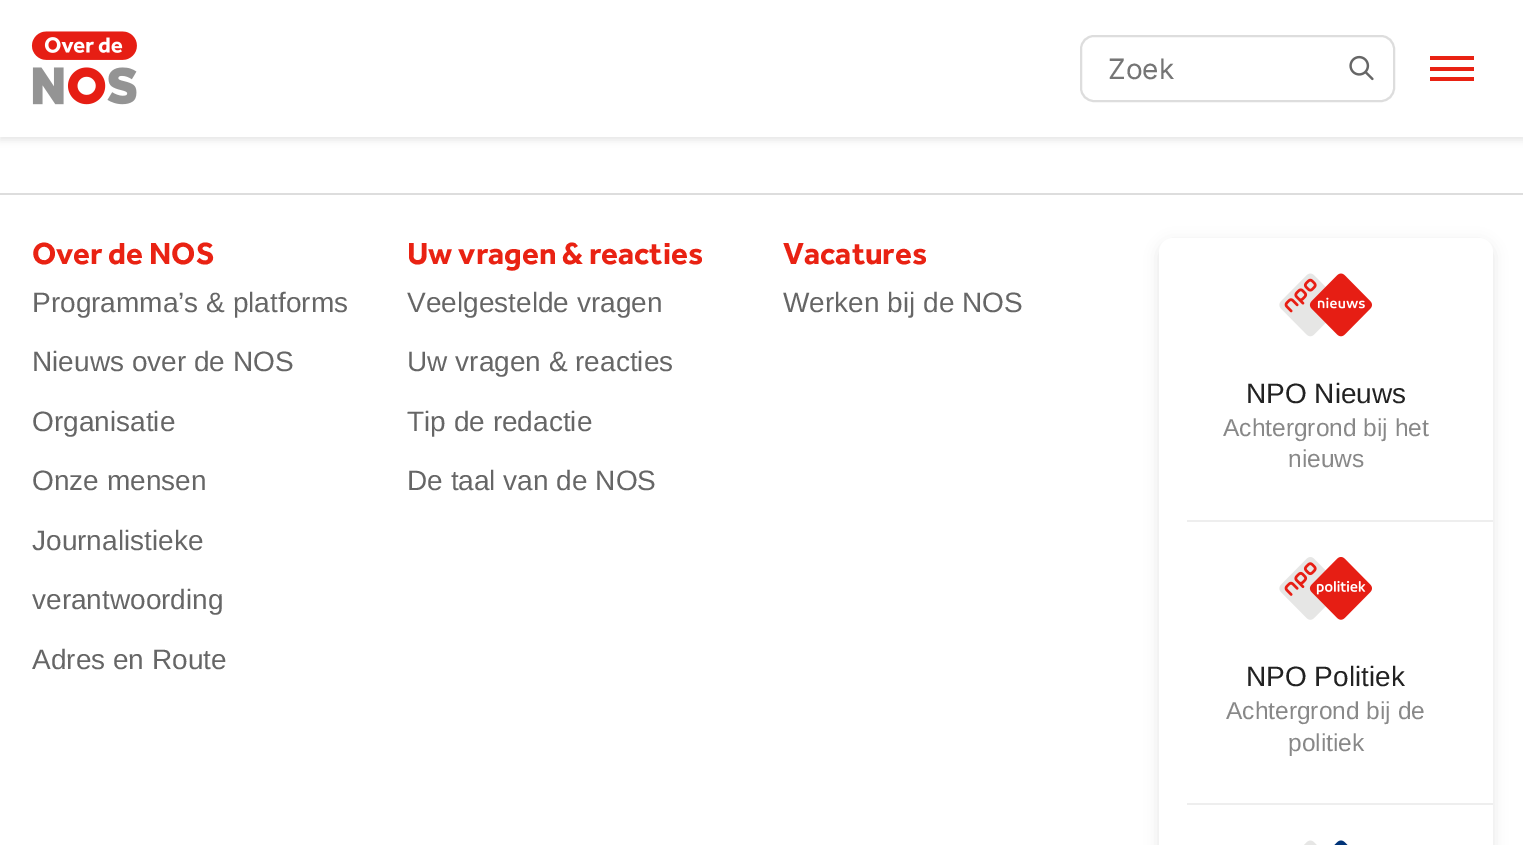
%!PS-Adobe-3.0
%%BoundingBox: 0 0 1523 845
%%LanguageLevel: 3
%%Pages: 1
%%EndComments
%%BeginProlog
/setink { dup -16 bitshift 255 div exch dup -8 bitshift 255 and 255 div exch 255 and 255 div setrgbcolor } def
/usefont { [ exch dup neg 0 0 3 -1 roll 0 0 ] selectfont } def
/setalpha { dup .setfillconstantalpha .setstrokeconstantalpha } def
/rrect { 5 dict begin { /r /h /w /y /x } { exch def } forall
  x r add y moveto x w add y 2 copy h add r arct x w add y h add x 1 index r arct
  x y h add x y r arct x y 2 copy exch w add exch r arct closepath end } def
/softshadow { 12 dict begin { /a /b /q /h /w /y /x } { exch def } forall gsave /was 0 def
  9 -2 -9 { dup b mul 4 div /e exch def 1 sub .425 mul 2.718 exch exp 1 add a .99 .min exch div /now exch def
    1 1 now sub 1 was sub div sub setalpha /was now def
    w h .min e 2 mul add 0 gt { x e sub y e sub w e 2 mul add h e 2 mul add
      q e add b .6 mul add w h .min 2 div e add .min 0 .max rrect fill } if } for grestore end } def
/drawimage { 5 dict begin { /h /w /y /x /name } { exch def } forall
  gsave x y translate w h scale
  w h 8 [w 0 0 h 0 0] name (r) file false 3 colorimage grestore end } def
%%EndProlog
%%BeginSetup
<< /PageSize [1523 845] /PageUsesTransparency true >> setpagedevice
%%EndSetup
%%Page: 1 1
0 .pushpdf14devicefilter
0 845 translate 1 -1 scale
4 setmiterlimit
16#FFFFFF setink
0 0 1523 845 rectfill
16#000000 setink
0 4 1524 136 0 3.5 0.1 softshadow
16#FFFFFF setink
0 0 1523 137 rectfill
(img3.raw) 32 67 105 38 drawimage
(img1.raw) 31 31 106 74 drawimage
(img2.raw) 44 37 79 16 drawimage
16#DDDDDD setink
2 setlinewidth
1081 36 313 65 13 rrect stroke
/Inter-Regular 28 usefont
16#757575 setink
1108 79 moveto (Zoek) show
(img4.raw) 1349 55 25 26 drawimage
[
    [1430 56 44 4 16#E92213]
    [1430 67 44 4 16#E92213]
    [1430 77 44 4 16#E92213]
    [0 193 1523 2 16#DDDDDD]
] { aload pop setink rectfill } forall
/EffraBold-Regular 31.5 usefont
16#E92213 setink
32 264 moveto (Over de NOS) show
/LiberationSans-Regular 28 usefont
16#666666 setink
[
    [(Programma’s & platforms) 32 312]
    [(Nieuws over de NOS) 32 371]
    [(Organisatie) 32 431]
    [(Onze mensen) 32 490]
    [(Journalistieke) 32 550]
    [(verantwoording) 32 609]
    [(Adres en Route) 32 669]
] { aload pop moveto show } forall
/EffraBold-Regular 31.5 usefont
16#E92213 setink
407 264 moveto (Uw vragen & reacties) show
/LiberationSans-Regular 28 usefont
16#666666 setink
[
    [(Veelgestelde vragen) 407 312]
    [(Uw vragen & reacties) 407 371]
    [(Tip de redactie) 407 431]
    [(De taal van de NOS) 407 490]
] { aload pop moveto show } forall
/EffraBold-Regular 31.5 usefont
16#E92213 setink
783 264 moveto (Vacatures) show
/LiberationSans-Regular 28 usefont
16#666666 setink
783 312 moveto (Werken bij de NOS) show
16#000000 setink
1159 242 334 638 14 7 0.1 softshadow
16#FFFFFF setink
1159 238 334 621 14 rrect fill
16#EEEEEE setink
1187 520 306 2 rectfill
(img5.raw) 1279 273 47 64 drawimage
(img6.raw) 1284 273 88 64 drawimage
(img7.raw) 1317 297 48 12 drawimage
16#222222 setink
1246 403 moveto (NPO Nieuws) show
/LiberationSans-Regular 24.5 usefont
16#888888 setink
1223 436 moveto (Achtergrond bij het) show
1288 467 moveto (nieuws) show
16#EEEEEE setink
1187 803 306 2 rectfill
(img8.raw) 1279 557 47 63 drawimage
(img9.raw) 1284 557 88 63 drawimage
(img10.raw) 1316 580 50 15 drawimage
/LiberationSans-Regular 28 usefont
16#222222 setink
1246 686 moveto (NPO Politiek) show
/LiberationSans-Regular 24.5 usefont
16#888888 setink
1226 719 moveto (Achtergrond bij de) show
1288 751 moveto (politiek) show
(img11.raw) 1304 840 13 5 drawimage
(img12.raw) 1334 840 14 5 drawimage
.poppdf14devicefilter showpage
%%EOF
